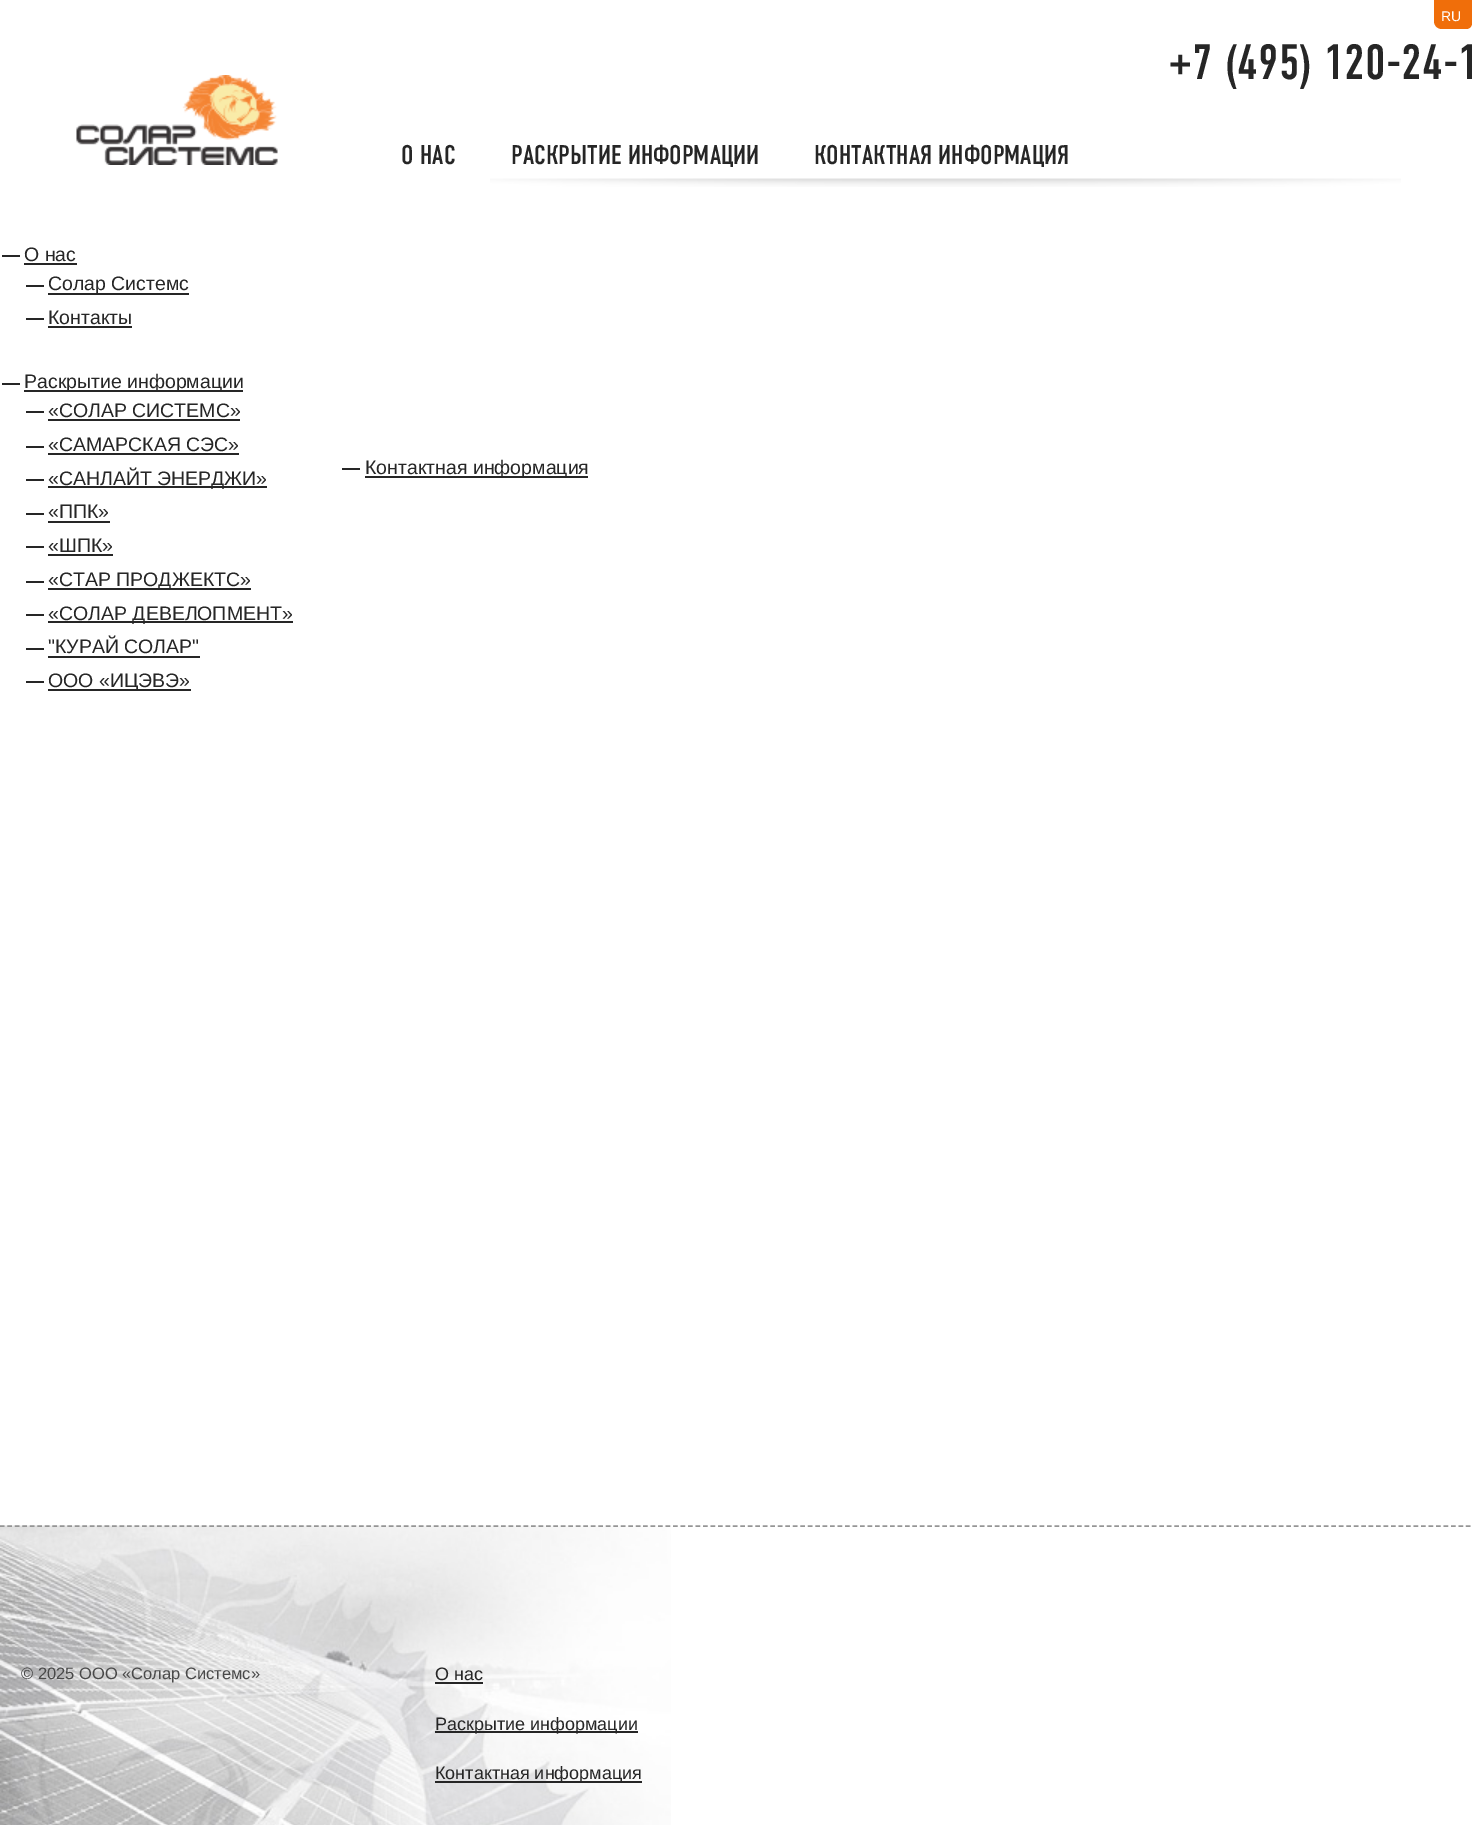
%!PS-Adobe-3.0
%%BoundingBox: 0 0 1472 1825
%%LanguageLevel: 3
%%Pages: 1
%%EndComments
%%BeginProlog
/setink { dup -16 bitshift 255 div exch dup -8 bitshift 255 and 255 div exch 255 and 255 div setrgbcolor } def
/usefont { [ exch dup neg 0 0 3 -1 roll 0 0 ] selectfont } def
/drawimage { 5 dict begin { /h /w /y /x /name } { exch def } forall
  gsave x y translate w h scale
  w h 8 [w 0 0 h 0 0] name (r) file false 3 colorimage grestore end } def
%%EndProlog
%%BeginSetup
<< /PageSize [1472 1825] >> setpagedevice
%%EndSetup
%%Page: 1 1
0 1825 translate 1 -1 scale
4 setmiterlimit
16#FFFFFF setink
0 0 1472 1825 rectfill
16#F06E0A setink
1434 -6 moveto 1461 -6 lineto 1461 29 lineto 1442 29 lineto 1437.5 29 1434 25.5 1434 21 curveto closepath fill
/LiberationSans-Regular 14 usefont
16#FFFFFF setink
1441 21 moveto (RU) show
16#F06E0A setink
1461 -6 moveto 1472 -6 lineto 1472 23.5 lineto 1472 26.5 1469.5 29 1466.5 29 curveto 1461 29 lineto closepath fill
/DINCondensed-Regular 49.5 usefont
16#262626 setink
1168 79 moveto (+7 \(495\) 120-24-1) show
(img1.raw) 76 75 202 90 drawimage
/DINCondensed-Regular 27 usefont
[
    [(О НАС) 401 164]
    [(РАСКРЫТИЕ ИНФОРМАЦИИ) 511 164]
    [(КОНТАКТНАЯ ИНФОРМАЦИЯ) 814 164]
] { aload pop moveto show } forall
(img2.raw) 490 178 911 9 drawimage
2 255 18 2 rectfill
/LiberationSans-Regular 19.5 usefont
24 261 moveto (О нас) show
[
    [24 263 53 2 16#262626]
    [26 285 18 2 16#262626]
    [48 293 141 2 16#262626]
] { aload pop setink rectfill } forall
48 290 moveto (Солар Системс) show
26 318 18 2 rectfill
48 324 moveto (Контакты) show
[
    [48 326 84 2 16#262626]
    [2 383 18 2 16#262626]
    [24 390 219 2 16#262626]
] { aload pop setink rectfill } forall
24 388 moveto (Раскрытие информации) show
26 411 18 2 rectfill
48 417 moveto («СОЛАР СИСТЕМС») show
48 419 192 2 rectfill
26 446 18 2 rectfill
48 451 moveto («САМАРСКАЯ СЭС») show
[
    [48 453 191 2 16#262626]
    [26 479 18 2 16#262626]
    [48 486 219 2 16#262626]
] { aload pop setink rectfill } forall
48 485 moveto («САНЛАЙТ ЭНЕРДЖИ») show
26 513 18 2 rectfill
48 518 moveto («ППК») show
48 521 62 2 rectfill
26 546 18 2 rectfill
48 552 moveto («ШПК») show
[
    [48 554 65 2 16#262626]
    [26 581 18 2 16#262626]
    [48 588 203 2 16#262626]
] { aload pop setink rectfill } forall
48 586 moveto («СТАР ПРОДЖЕКТС») show
26 614 18 2 rectfill
48 621 245 2 rectfill
48 620 moveto («СОЛАР ДЕВЕЛОПМЕНТ») show
26 648 18 2 rectfill
48 653 moveto ("КУРАЙ СОЛАР") show
[
    [48 656 152 2 16#262626]
    [26 681 18 2 16#262626]
    [48 689 143 2 16#262626]
] { aload pop setink rectfill } forall
48 687 moveto (ООО «ИЦЭВЭ») show
342 468 18 2 rectfill
365 476 223 2 rectfill
365 474 moveto (Контактная информация) show
(img3.raw) 0 1525 671 300 drawimage
16#959595 setink
1.5 setlinewidth
[4.5 2.98] 0 setdash
0 1526 moveto 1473 1526 lineto stroke
/LiberationSans-Regular 16.5 usefont
16#494949 setink
21 1679 moveto (© 2025 ООО «Солар Системс») show
/LiberationSans-Regular 18 usefont
16#262626 setink
435 1680 moveto (О нас) show
435 1682 48 2 rectfill
435 1731 203 2 rectfill
435 1730 moveto (Раскрытие информации) show
435 1781 207 2 rectfill
435 1779 moveto (Контактная информация) show
showpage
%%EOF
